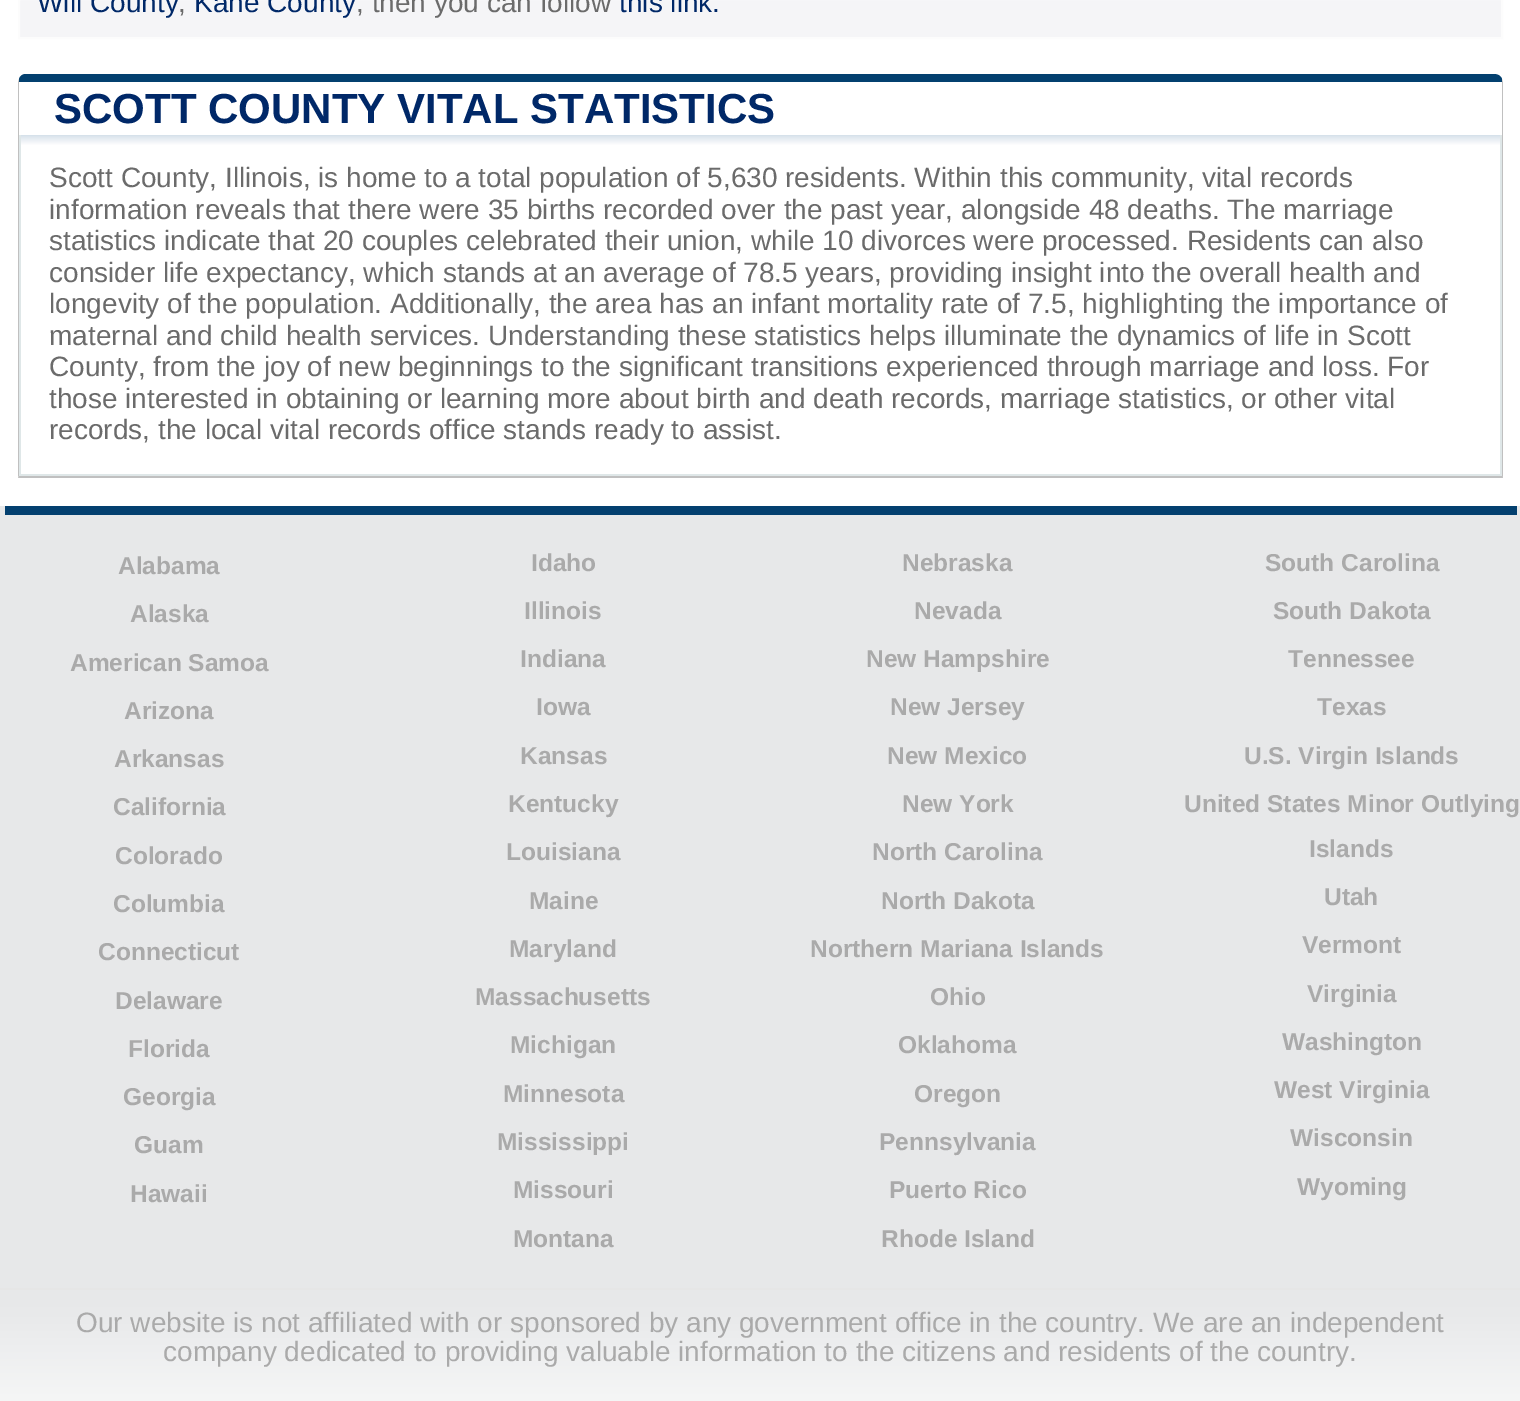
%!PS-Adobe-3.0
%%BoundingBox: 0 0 1520 1401
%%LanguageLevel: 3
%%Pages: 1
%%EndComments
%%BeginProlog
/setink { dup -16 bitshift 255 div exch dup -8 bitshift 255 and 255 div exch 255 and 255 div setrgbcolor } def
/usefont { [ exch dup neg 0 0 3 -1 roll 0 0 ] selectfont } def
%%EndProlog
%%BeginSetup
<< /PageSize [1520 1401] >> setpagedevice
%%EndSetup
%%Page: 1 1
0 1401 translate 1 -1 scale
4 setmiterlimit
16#FFFFFF setink
0 0 1520 1401 rectfill
16#F5F5F7 setink
19 -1 moveto 1502 -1 lineto 1502 38 lineto 19 38 lineto closepath gsave fill grestore
16#FCFCFC setink
2 setlinewidth
stroke
/LiberationSans-Regular 28 usefont
16#002868 setink
37 12 moveto (Will County) show
16#6B6B6B setink
178 12 moveto (,) show
16#002868 setink
194 12 moveto (Kane County) show
16#6B6B6B setink
356 12 moveto (, then you can follow) show
16#002868 setink
619 12 moveto (this link.) show
16#03406F setink
26 74 moveto 22 74 20 76 19 79 curveto 19 82 lineto 1502 82 lineto 1502 79 lineto 1501 76 1498 74 1494 74 curveto closepath fill
16#C0C0C0 setink
1503 478 moveto 1503 82 lineto 1502 79 lineto 1502 82 lineto 1502 476 lineto closepath fill
18 478 moveto 19 476 lineto 1502 476 lineto 1503 478 lineto closepath fill
19 79 moveto 18 82 lineto 18 477 lineto 19 476 lineto 19 82 lineto closepath fill
/LiberationSans-Bold 42 usefont
16#002868 setink
54 123 moveto (SCOTT COUNTY VITAL STATISTICS) show
gsave 21 135 moveto 1500 135 lineto 1500 145 lineto 21 145 lineto closepath clip newpath
<< /ShadingType 2 /ColorSpace /DeviceRGB /Coords [760 474 760 135] /Extend [true true] /Function << /FunctionType 3 /Domain [0 1] /Functions [<< /FunctionType 2 /Domain [0 1] /C0 [1 1 1] /C1 [1 1 1] /N 1 >> << /FunctionType 2 /Domain [0 1] /C0 [1 1 1] /C1 [0.839 0.882 0.918] /N 1 >>] /Bounds [0.97] /Encode [0 1 0 1] >> >> shfill grestore
[
    [1500 135 2 341 16#DFE7E8]
    [19 474 1483 2 16#DFE7E8]
    [19 135 2 341 16#DFE7E8]
] { aload pop setink rectfill } forall
/LiberationSans-Regular 28 usefont
16#6B6B6B setink
[
    [(Scott County, Illinois, is home to a total population of 5,630 residents. Within this community, vital records) 49 187]
    [(information reveals that there were 35 births recorded over the past year, alongside 48 deaths. The marriage) 49 219]
    [(statistics indicate that 20 couples celebrated their union, while 10 divorces were processed. Residents can also) 49 250]
    [(consider life expectancy, which stands at an average of 78.5 years, providing insight into the overall health and) 49 282]
    [(longevity of the population. Additionally, the area has an infant mortality rate of 7.5, highlighting the importance of) 49 313]
    [(maternal and child health services. Understanding these statistics helps illuminate the dynamics of life in Scott) 49 345]
    [(County, from the joy of new beginnings to the significant transitions experienced through marriage and loss. For) 49 376]
    [(those interested in obtaining or learning more about birth and death records, marriage statistics, or other vital) 49 408]
    [(records, the local vital records office stands ready to assist.) 49 439]
] { aload pop moveto show } forall
gsave 0 506 moveto 1520 506 lineto 1520 1401 lineto 0 1401 lineto closepath clip newpath
<< /ShadingType 2 /ColorSpace /DeviceRGB /Coords [760 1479 760 506] /Extend [true true] /Function << /FunctionType 3 /Domain [0 1] /Functions [<< /FunctionType 2 /Domain [0 1] /C0 [1 1 1] /C1 [1 1 1] /N 1 >> << /FunctionType 2 /Domain [0 1] /C0 [1 1 1] /C1 [0.906 0.91 0.914] /N 1 >> << /FunctionType 2 /Domain [0 1] /C0 [0.906 0.91 0.914] /C1 [0.906 0.91 0.914] /N 1 >>] /Bounds [0.01 0.18] /Encode [0 1 0 1 0 1] >> >> shfill grestore
16#03406F setink
5 506 1512 9 rectfill
/LiberationSans-Bold 24.5 usefont
16#AAAAAA setink
[
    [(Alabama) 118 574]
    [(Idaho) 531 571]
    [(Nebraska) 902 571]
    [(South Carolina) 1265 571]
    [(Alaska) 130 622]
    [(Illinois) 524 619]
    [(Nevada) 914 619]
    [(South Dakota) 1273 619]
    [(American Samoa) 70 671]
    [(Indiana) 520 667]
    [(New Hampshire) 866 667]
    [(Tennessee) 1288 667]
    [(Arizona) 124 719]
    [(Iowa) 536 715]
    [(New Jersey) 890 715]
    [(Texas) 1317 715]
    [(Arkansas) 114 767]
    [(Kansas) 520 764]
    [(New Mexico) 887 764]
    [(U.S. Virgin Islands) 1244 764]
    [(California) 113 815]
    [(Kentucky) 508 812]
    [(New York) 902 812]
    [(United States Minor Outlying) 1184 812]
    [(Islands) 1309 857]
    [(Colorado) 115 864]
    [(Louisiana) 506 860]
    [(North Carolina) 872 860]
    [(Columbia) 113 912]
    [(Maine) 529 909]
    [(North Dakota) 881 909]
    [(Utah) 1324 905]
    [(Connecticut) 98 960]
    [(Maryland) 509 957]
    [(Northern Mariana Islands) 810 957]
    [(Vermont) 1302 953]
    [(Delaware) 115 1009]
    [(Massachusetts) 475 1005]
    [(Ohio) 930 1005]
    [(Virginia) 1307 1002]
    [(Florida) 128 1057]
    [(Michigan) 510 1053]
    [(Oklahoma) 898 1053]
    [(Washington) 1282 1050]
    [(Georgia) 123 1105]
    [(Minnesota) 503 1102]
    [(Oregon) 914 1102]
    [(West Virginia) 1274 1098]
    [(Guam) 134 1153]
    [(Mississippi) 497 1150]
    [(Pennsylvania) 879 1150]
    [(Wisconsin) 1290 1146]
    [(Hawaii) 130 1202]
    [(Missouri) 513 1198]
    [(Puerto Rico) 889 1198]
    [(Wyoming) 1297 1195]
    [(Montana) 513 1247]
    [(Rhode Island) 881 1247]
] { aload pop moveto show } forall
16#E6E6E6 setink
0 1288 1520 2 rectfill
/LiberationSans-Regular 28 usefont
16#AAAAAA setink
76 1332 moveto (Our website is not affiliated with or sponsored by any government office in the country. We are an independent) show
163 1361 moveto (company dedicated to providing valuable information to the citizens and residents of the country.) show
showpage
%%EOF
